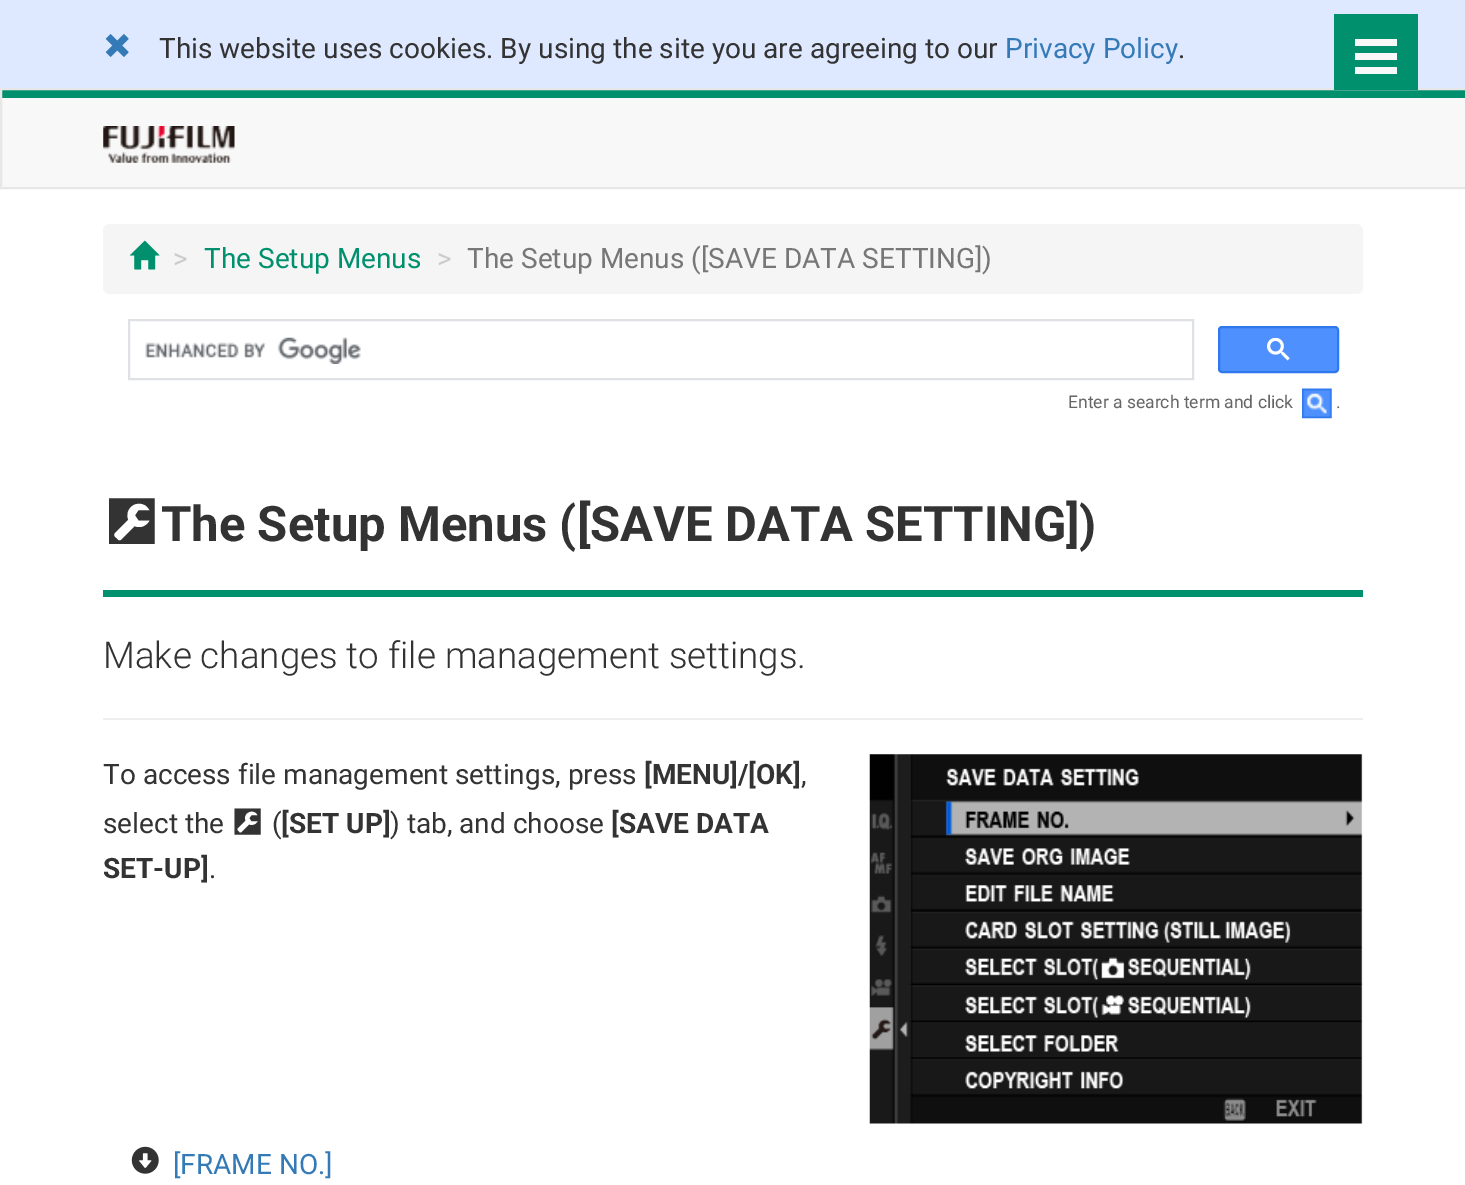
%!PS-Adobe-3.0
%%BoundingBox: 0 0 1465 1185
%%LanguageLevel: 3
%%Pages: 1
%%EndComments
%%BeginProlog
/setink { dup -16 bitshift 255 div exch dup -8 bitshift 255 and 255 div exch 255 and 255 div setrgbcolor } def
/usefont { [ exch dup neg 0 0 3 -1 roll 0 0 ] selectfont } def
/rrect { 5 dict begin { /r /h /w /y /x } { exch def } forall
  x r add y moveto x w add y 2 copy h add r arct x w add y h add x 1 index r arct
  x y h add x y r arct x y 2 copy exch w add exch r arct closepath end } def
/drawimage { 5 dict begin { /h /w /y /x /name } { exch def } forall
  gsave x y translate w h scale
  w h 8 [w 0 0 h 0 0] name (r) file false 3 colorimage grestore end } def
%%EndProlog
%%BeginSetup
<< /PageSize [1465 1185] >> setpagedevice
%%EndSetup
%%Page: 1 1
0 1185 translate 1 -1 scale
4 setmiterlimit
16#FFFFFF setink
0 0 1465 1185 rectfill
16#DEE8FF setink
0 0 1465 88 rectfill
(img1.raw) 105 34 24 23 drawimage
/Roboto-Regular 28 usefont
16#333333 setink
159 58 moveto (This website uses cookies. By using the site you are agreeing to our) show
16#337AB7 setink
1005 58 moveto (Privacy Policy) show
16#333333 setink
1178 58 moveto (.) show
16#F8F8F8 setink
2 98 1463 89 rectfill
16#01906D setink
2 90 1463 8 rectfill
16#E7E7E7 setink
2 setlinewidth
1 89 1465 99 rectstroke
(img2.raw) 103 126 132 37 drawimage
16#F5F5F5 setink
103 224 1260 70 7 rrect fill
(img3.raw) 129 240 31 30 drawimage
16#CCCCCC setink
173 268 moveto (>) show
16#00906D setink
204 268 moveto (The Setup Menus) show
16#CCCCCC setink
437 268 moveto (>) show
16#777777 setink
467 268 moveto (The Setup Menus \([SAVE DATA SETTING]\)) show
16#DFE1E5 setink
129 320 1064 59 rectstroke
(img4.raw) 145 337 216 27 drawimage
16#4D90FE setink
1219 327 119 45 3 rrect gsave fill grestore
16#3079ED setink
stroke
(img5.raw) 1267 338 23 23 drawimage
/Roboto-Regular 17.5 usefont
16#666666 setink
1068 408 moveto (Enter a search term and click) show
(img6.raw) 1302 388 30 31 drawimage
1336 408 moveto (.) show
16#00906D setink
103 590 1260 7 rectfill
/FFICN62-Regular 61 usefont
16#333333 setink
103 541 moveto (D) show
/Roboto-Bold 49 usefont
161 541 moveto (The Setup Menus \([SAVE DATA SETTING]\)) show
/Roboto-Light 36.75 usefont
103 668 moveto (Make changes to file management settings.) show
16#EEEEEE setink
103 718 1260 2 rectfill
/Roboto-Regular 28 usefont
16#333333 setink
103 784 moveto (To access file management settings, press) show
/Roboto-Bold 28 usefont
644 784 moveto ([MENU]/[OK]) show
/Roboto-Regular 28 usefont
801 784 moveto (,) show
103 833 moveto (select the) show
/FFICN62-Regular 35 usefont
231 833 moveto (D) show
/Roboto-Regular 28 usefont
272 833 moveto (\() show
/Roboto-Bold 28 usefont
281 833 moveto ([SET UP]) show
/Roboto-Regular 28 usefont
390 833 moveto (\) tab, and choose) show
/Roboto-Bold 28 usefont
611 833 moveto ([SAVE DATA) show
103 878 moveto (SET-UP]) show
/Roboto-Regular 28 usefont
209 878 moveto (.) show
(img7.raw) 869 754 494 370 drawimage
(img8.raw) 131 1146 28 28 drawimage
16#337AB7 setink
173 1174 moveto ([FRAME NO.]) show
[
    [1334 14 84 76 16#00906D]
    [1355 53 42 7 16#F8F8F8]
    [1355 39 42 7 16#F8F8F8]
    [1355 67 42 7 16#F8F8F8]
] { aload pop setink rectfill } forall
showpage
%%EOF
